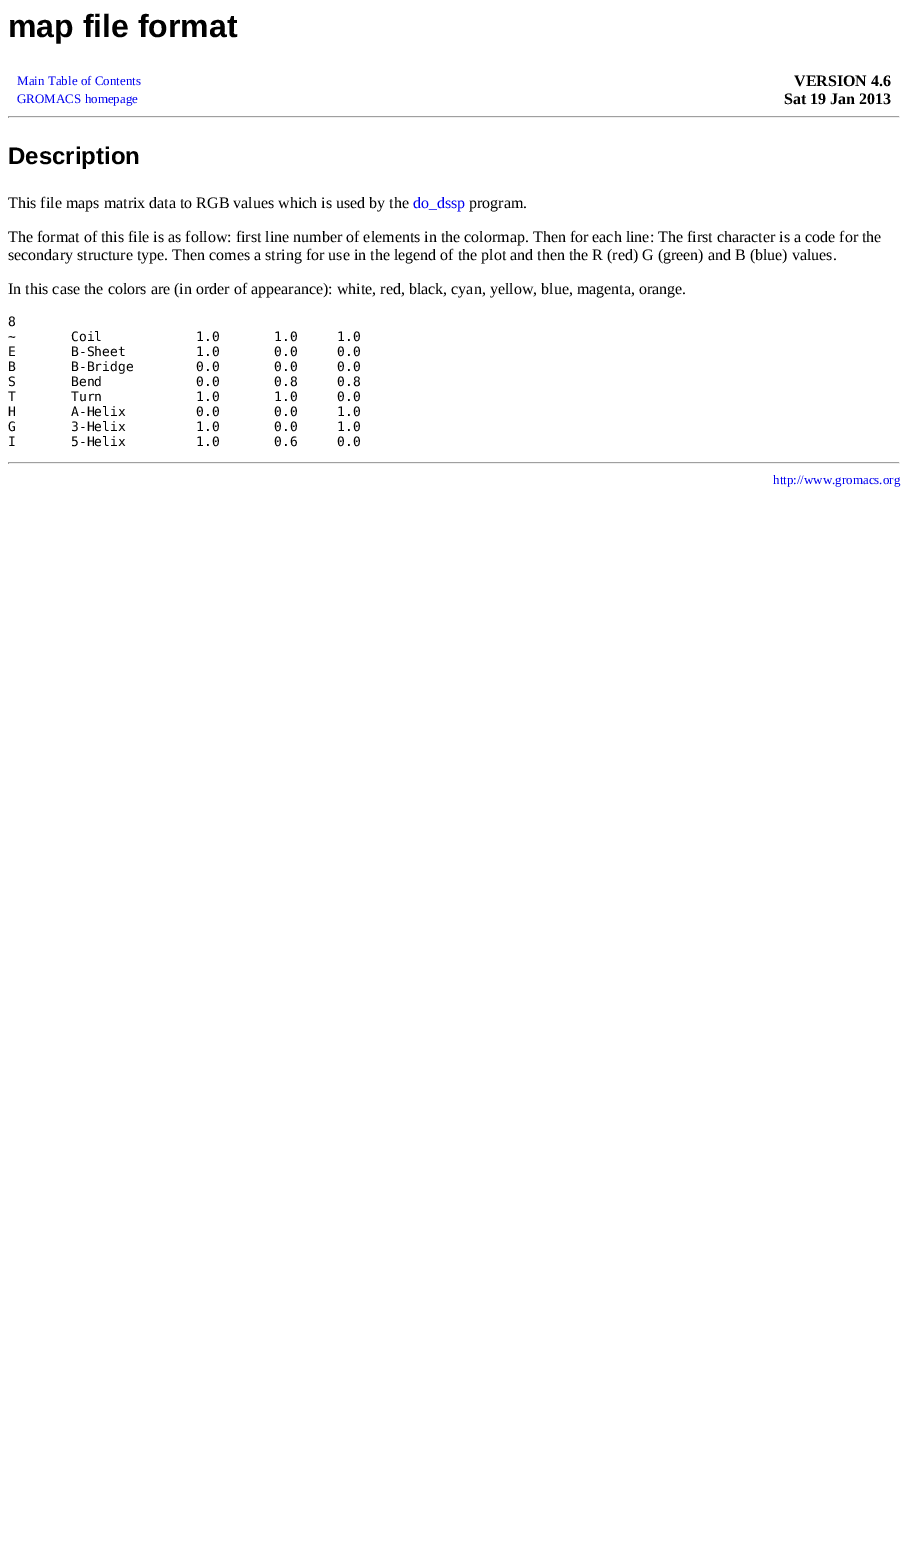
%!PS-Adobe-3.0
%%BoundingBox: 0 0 908 1566
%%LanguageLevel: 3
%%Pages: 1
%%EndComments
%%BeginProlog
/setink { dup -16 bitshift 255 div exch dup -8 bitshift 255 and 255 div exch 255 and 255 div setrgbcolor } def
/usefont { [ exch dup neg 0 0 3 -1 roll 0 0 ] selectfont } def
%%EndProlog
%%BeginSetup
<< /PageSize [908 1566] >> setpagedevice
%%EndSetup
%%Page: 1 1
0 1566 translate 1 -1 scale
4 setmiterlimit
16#FFFFFF setink
0 0 908 1566 rectfill
/LiberationSans-Bold 32 usefont
16#000000 setink
8 37 moveto (map file format) show
/LiberationSerif-Regular 13 usefont
16#0000EF setink
17 85 moveto (Main Table of Contents) show
/LiberationSerif-Bold 16 usefont
16#000000 setink
794 86 moveto (VERSION 4.6) show
/LiberationSerif-Regular 13 usefont
16#0000EF setink
17 103 moveto (GROMACS homepage) show
/LiberationSerif-Bold 16 usefont
16#000000 setink
784 104 moveto (Sat 19 Jan 2013) show
[
    [8 116 892 1 16#9F9F9F]
    [899 116 1 2 16#EEEEEE]
    [8 117 892 1 16#EEEEEE]
    [8 116 1 2 16#9F9F9F]
] { aload pop setink rectfill } forall
/LiberationSans-Bold 24 usefont
16#000000 setink
8 164 moveto (Description) show
/LiberationSerif-Regular 16 usefont
8 208 moveto (This file maps matrix data to RGB values which is used by the) show
16#0000EF setink
413 208 moveto (do_dssp) show
16#000000 setink
[
    [(program.) 469 208]
    [(The format of this file is as follow: first line number of elements in the colormap. Then for each line: The first character is a code for the) 8 242]
    [(secondary structure type. Then comes a string for use in the legend of the plot and then the R \(red\) G \(green\) and B \(blue\) values.) 8 260]
    [(In this case the colors are \(in order of appearance\): white, red, black, cyan, yellow, blue, magenta, orange.) 8 294]
] { aload pop moveto show } forall
/DejaVuSansMono-Regular 13 usefont
[
    [(8) 8 326]
    [(~) 8 341]
    [(Coil) 71 341]
    [(1.0) 196 341]
    [(1.0) 274 341]
    [(1.0) 337 341]
    [(E) 8 356]
    [(B-Sheet) 71 356]
    [(1.0) 196 356]
    [(0.0) 274 356]
    [(0.0) 337 356]
    [(B) 8 371]
    [(B-Bridge) 71 371]
    [(0.0) 196 371]
    [(0.0) 274 371]
    [(0.0) 337 371]
    [(S) 8 386]
    [(Bend) 71 386]
    [(0.0) 196 386]
    [(0.8) 274 386]
    [(0.8) 337 386]
    [(T) 8 401]
    [(Turn) 71 401]
    [(1.0) 196 401]
    [(1.0) 274 401]
    [(0.0) 337 401]
    [(H) 8 416]
    [(A-Helix) 71 416]
    [(0.0) 196 416]
    [(0.0) 274 416]
    [(1.0) 337 416]
    [(G) 8 431]
    [(3-Helix) 71 431]
    [(1.0) 196 431]
    [(0.0) 274 431]
    [(1.0) 337 431]
    [(I) 8 446]
    [(5-Helix) 71 446]
    [(1.0) 196 446]
    [(0.6) 274 446]
    [(0.0) 337 446]
] { aload pop moveto show } forall
[
    [8 462 892 1 16#9F9F9F]
    [899 462 1 2 16#EEEEEE]
    [8 463 892 1 16#EEEEEE]
    [8 462 1 2 16#9F9F9F]
] { aload pop setink rectfill } forall
/LiberationSerif-Regular 13 usefont
16#0000EF setink
773 484 moveto (http://www.gromacs.org) show
showpage
%%EOF
